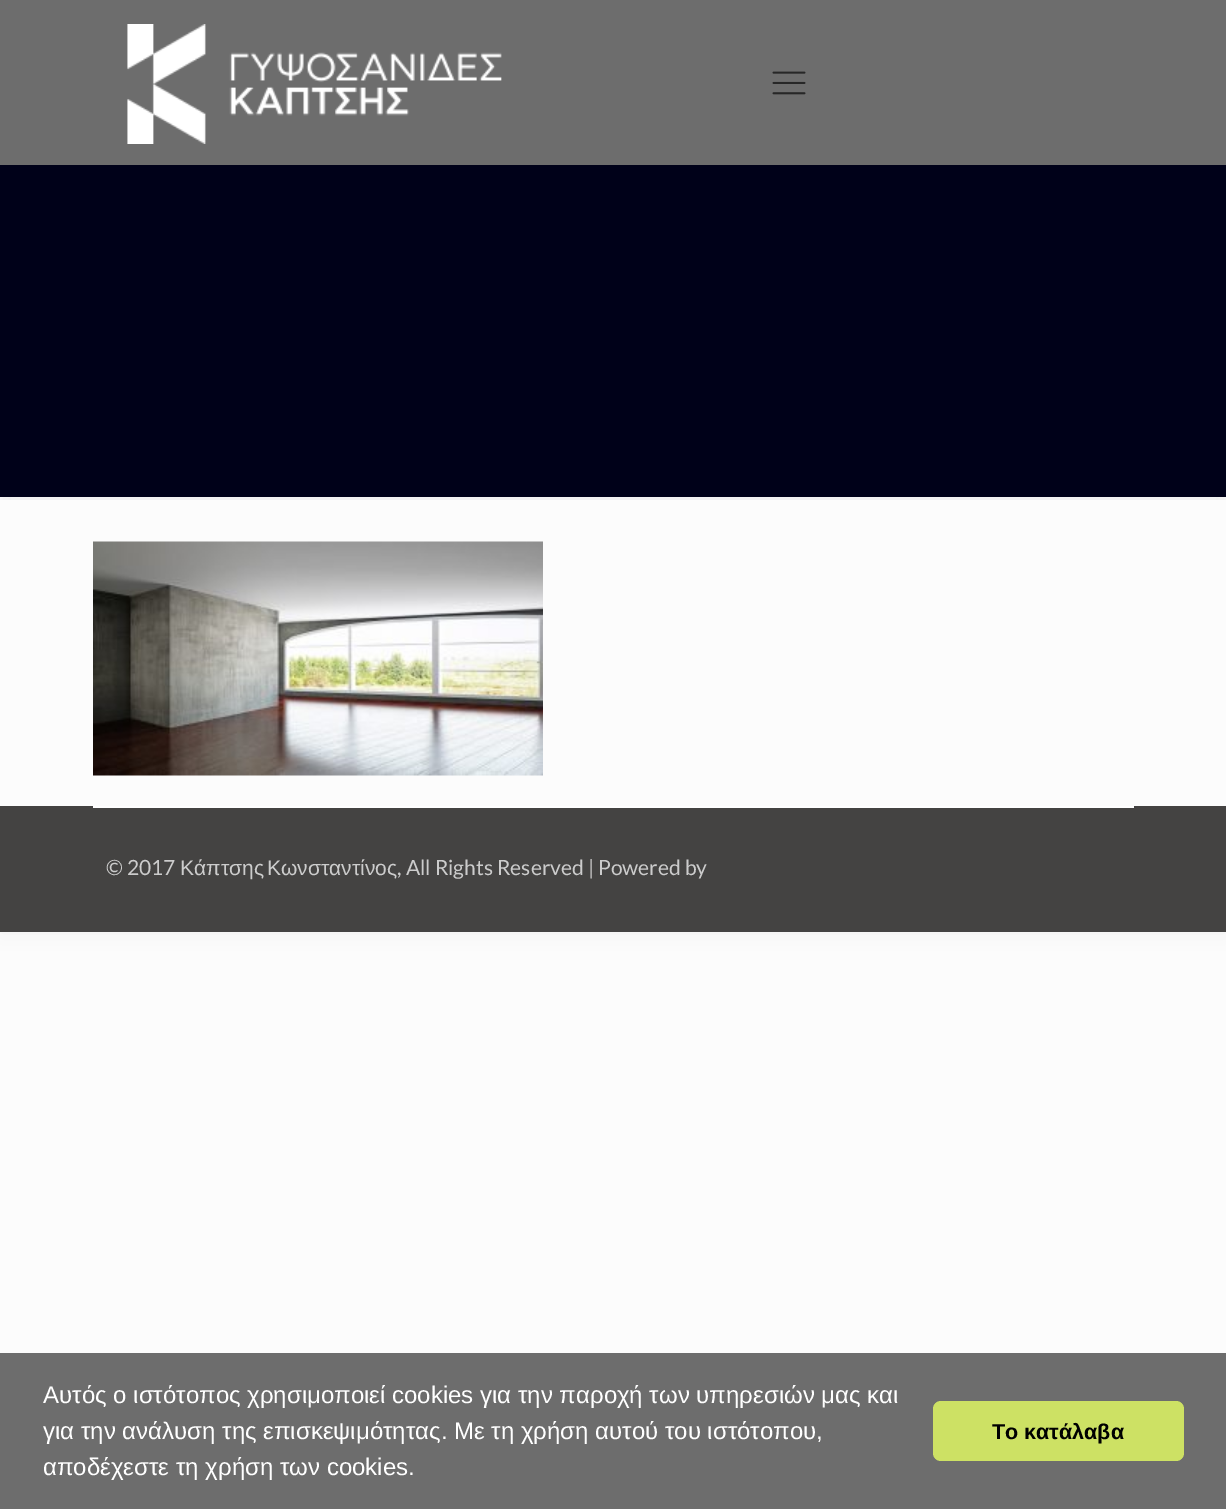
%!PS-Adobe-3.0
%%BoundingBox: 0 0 1226 1509
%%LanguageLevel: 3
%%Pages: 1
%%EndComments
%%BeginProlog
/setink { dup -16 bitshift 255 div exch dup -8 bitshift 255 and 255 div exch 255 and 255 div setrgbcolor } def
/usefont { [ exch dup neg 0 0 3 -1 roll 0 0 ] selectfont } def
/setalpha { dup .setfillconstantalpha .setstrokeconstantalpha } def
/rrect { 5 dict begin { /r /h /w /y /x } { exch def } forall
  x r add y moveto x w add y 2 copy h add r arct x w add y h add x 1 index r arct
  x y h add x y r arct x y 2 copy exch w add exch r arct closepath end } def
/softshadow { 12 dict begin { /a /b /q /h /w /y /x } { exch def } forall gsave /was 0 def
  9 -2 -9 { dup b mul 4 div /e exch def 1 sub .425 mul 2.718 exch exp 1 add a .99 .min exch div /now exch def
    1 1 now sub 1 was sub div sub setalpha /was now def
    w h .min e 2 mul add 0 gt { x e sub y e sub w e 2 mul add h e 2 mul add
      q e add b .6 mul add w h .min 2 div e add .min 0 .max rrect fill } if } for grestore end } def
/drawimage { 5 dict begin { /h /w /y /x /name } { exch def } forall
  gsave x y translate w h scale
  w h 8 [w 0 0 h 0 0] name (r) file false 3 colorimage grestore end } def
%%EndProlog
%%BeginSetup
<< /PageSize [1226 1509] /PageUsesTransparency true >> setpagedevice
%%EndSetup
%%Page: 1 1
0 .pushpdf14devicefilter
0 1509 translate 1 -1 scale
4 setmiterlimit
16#FCFCFC setink
0 0 1226 1509 rectfill
16#000000 setink
0 0 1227 932 0 11 0.06 softshadow
[
    [0 500 1226 306 16#FCFCFC]
    [0 165 1226 332 16#000119]
    [0 0 1226 165 16#6D6D6D]
] { aload pop setink rectfill } forall
(img1.raw) 127 24 375 120 drawimage
(img2.raw) 772 71 34 24 drawimage
16#F2F2F2 setink
11 497 1205 3 rectfill
(img3.raw) 93 541 450 235 drawimage
16#444342 setink
0 806 1226 126 rectfill
16#FFFFFF setink
93 806 1041 2 rectfill
/Lato-Regular 21 usefont
16#CCCCCC setink
106 875 moveto (© 2017) show
/LiberationSans-Regular 21 usefont
180 875 moveto (Κάπτσης) show
267 875 moveto (Κωνσταντίνος) show
/Lato-Regular 21 usefont
397 875 moveto (, All Rights Reserved | Powered by) show
16#6D6D6D setink
0 1353 1226 156 rectfill
/LiberationSans-Regular 24 usefont
16#FFFFFF setink
[
    [(Αυτός ο ιστότοπος χρησιμοποιεί cookies για την παροχή των υπηρεσιών μας και) 43 1403]
    [(για την ανάλυση της επισκεψιμότητας. Με τη χρήση αυτού του ιστότοπου,) 43 1439]
    [(αποδέχεστε τη χρήση των cookies.) 43 1475]
] { aload pop moveto show } forall
16#CDE164 setink
933 1401 251 60 8 rrect fill
/LiberationSans-Bold 21.5 usefont
16#000000 setink
992 1439 moveto (Το κατάλαβα) show
.poppdf14devicefilter showpage
%%EOF
